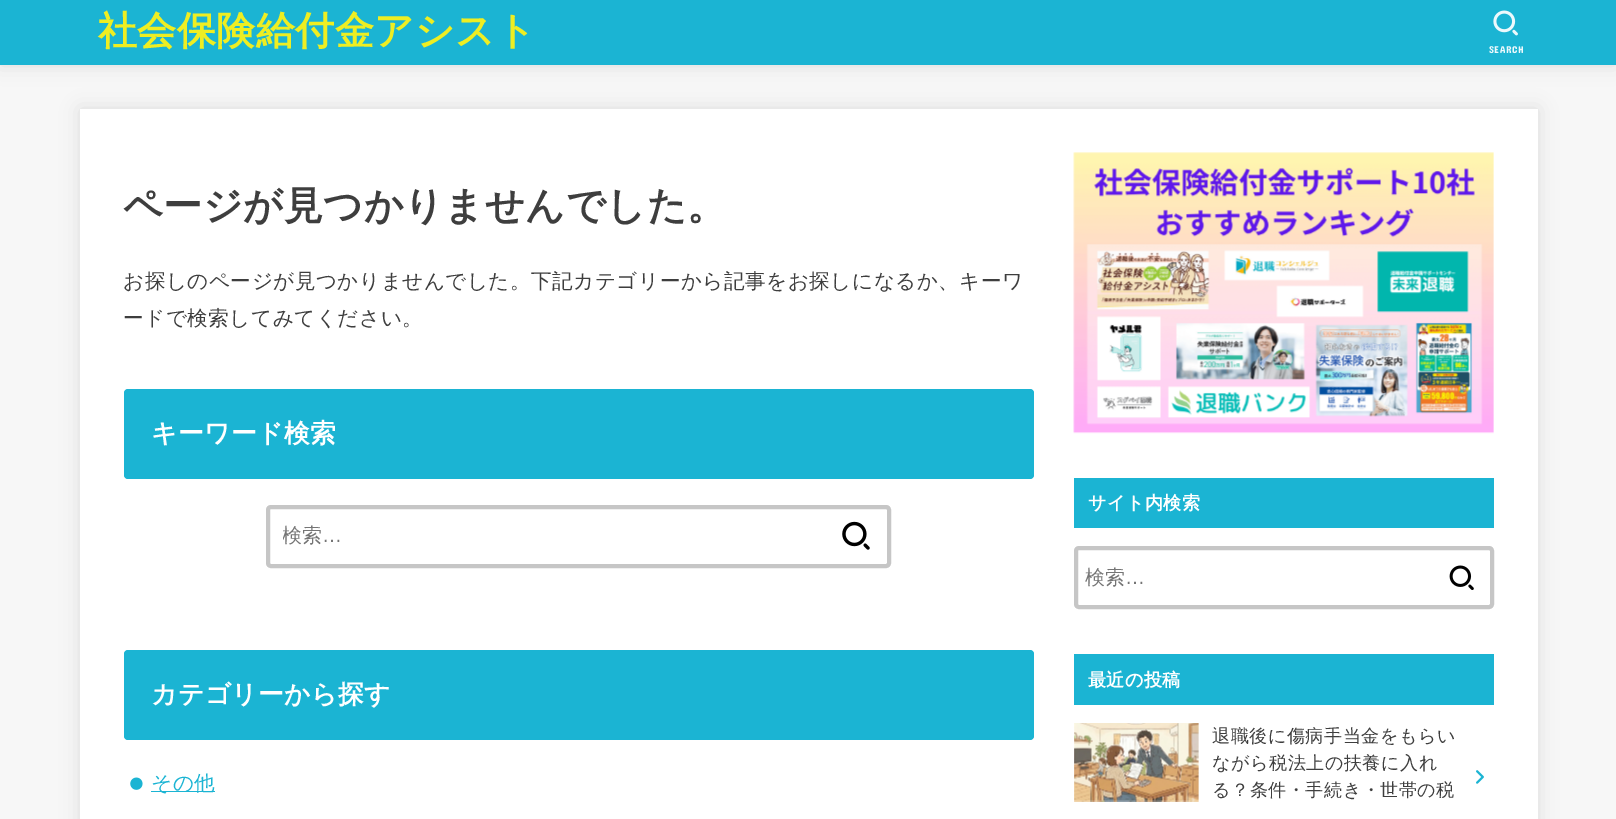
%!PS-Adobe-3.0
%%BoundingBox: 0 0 1616 819
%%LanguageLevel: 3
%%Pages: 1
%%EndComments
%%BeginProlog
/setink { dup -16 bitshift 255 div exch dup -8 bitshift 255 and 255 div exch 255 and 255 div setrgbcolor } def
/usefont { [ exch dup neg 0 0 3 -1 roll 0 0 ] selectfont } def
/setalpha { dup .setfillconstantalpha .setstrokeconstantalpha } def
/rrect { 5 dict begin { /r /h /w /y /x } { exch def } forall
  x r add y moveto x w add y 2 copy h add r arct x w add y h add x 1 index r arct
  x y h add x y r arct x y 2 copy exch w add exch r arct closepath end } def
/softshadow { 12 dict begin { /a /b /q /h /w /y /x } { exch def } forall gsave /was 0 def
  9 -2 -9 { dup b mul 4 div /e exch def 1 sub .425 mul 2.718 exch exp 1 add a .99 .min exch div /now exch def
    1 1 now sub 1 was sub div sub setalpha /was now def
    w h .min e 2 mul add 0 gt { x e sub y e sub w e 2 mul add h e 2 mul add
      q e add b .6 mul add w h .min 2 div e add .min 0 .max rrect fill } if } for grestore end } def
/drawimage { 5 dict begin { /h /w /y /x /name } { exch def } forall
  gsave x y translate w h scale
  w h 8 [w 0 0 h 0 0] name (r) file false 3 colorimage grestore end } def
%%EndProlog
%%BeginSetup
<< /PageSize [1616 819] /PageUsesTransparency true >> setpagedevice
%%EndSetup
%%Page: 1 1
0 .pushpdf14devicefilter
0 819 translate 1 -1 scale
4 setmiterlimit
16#F7F7F7 setink
0 0 1616 819 rectfill
16#666666 setink
0 0 1616 65 0 9.5 0.2 softshadow
16#1BB4D3 setink
0 0 1616 65 rectfill
/WenQuanYiZenHei-Bold 39.1 usefont
16#EEEE22 setink
98 44 moveto 0.4 0 (社会保険給付金アシスト) ashow
(img1.raw) 1493 10 25 26 drawimage
/ConcertOne-Regular 10 usefont
16#EDF9FC setink
1489 53 moveto 0.5 0 (SEARCH) ashow
16#666666 setink
80 109 1458 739 0 9.5 0.2 softshadow
16#FFFFFF setink
80 109 1458 710 rectfill
/WenQuanYiZenHei-Bold 39.1 usefont
16#3E3E3E setink
123 219 moveto 0.4 0 (ページが見つかりませんでした。) ashow
/WenQuanYiZenHei-Medium 20.6 usefont
123 288 moveto 0.5 0 (お探しのページが見つかりませんでした。下記カテゴリーから記事をお探しになるか、キーワ) ashow
123 325 moveto 0.5 0 (ードで検索してみてください。) ashow
16#1BB4D3 setink
124 389 910 90 4 rrect fill
/WenQuanYiZenHei-Bold 25.75 usefont
16#FFFFFF setink
151 442 moveto 0.4 0 (キーワード検索) ashow
16#C6C6C6 setink
4 setlinewidth
268 507 621 59 3 rrect stroke
gsave
283 524 550 26 rectclip
/WenQuanYiZenHei-Medium 20 usefont
16#757575 setink
282 542 moveto (検索) show
grestore
/LiberationSans-Regular 20 usefont
16#757575 setink
322 542 moveto (…) show
(img2.raw) 842 521 28 29 drawimage
16#1BB4D3 setink
124 650 910 90 4 rrect fill
/WenQuanYiZenHei-Bold 25.75 usefont
16#FFFFFF setink
151 703 moveto 0.4 0 (カテゴリーから探す) ashow
(img3.raw) 130 777 13 13 drawimage
16#1BB4D3 setink
151 791 64 1 rectfill
/WenQuanYiZenHei-Medium 20.6 usefont
151 790 moveto 0.5 0 (その他) ashow
(img4.raw) 1073 152 421 282 drawimage
1074 478 420 50 rectfill
/WenQuanYiZenHei-Bold 18.1 usefont
16#FFFFFF setink
1088 509 moveto 0.4 0 (サイト内検索) ashow
16#C6C6C6 setink
1076 548 416 59 3 rrect stroke
/WenQuanYiZenHei-Medium 20 usefont
16#757575 setink
1085 584 moveto (検索) show
/LiberationSans-Regular 20 usefont
1125 584 moveto (…) show
(img5.raw) 1449 565 25 25 drawimage
16#1BB4D3 setink
1074 654 420 51 rectfill
/WenQuanYiZenHei-Bold 18.1 usefont
16#FFFFFF setink
1088 686 moveto 0.4 0 (最近の投稿) ashow
(img6.raw) 1074 723 125 79 drawimage
/WenQuanYiZenHei-Medium 18.1 usefont
16#3E3E3E setink
1212 742 moveto 0.5 0 (退職後に傷病手当金をもらい) ashow
1212 769 moveto 0.5 0 (ながら税法上の扶養に入れ) ashow
1212 796 moveto 0.5 0 (る？条件・手続き・世帯の税) ashow
(img7.raw) 1476 770 8 14 drawimage
.poppdf14devicefilter showpage
%%EOF
